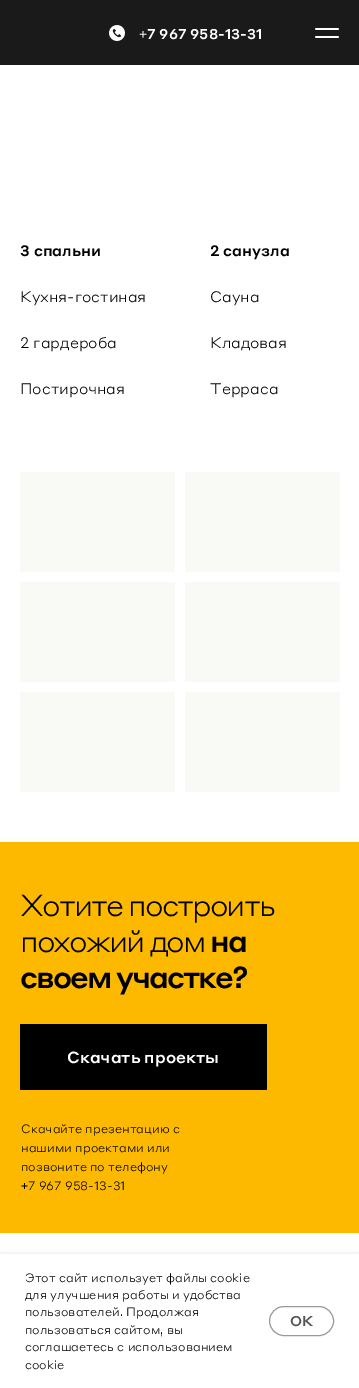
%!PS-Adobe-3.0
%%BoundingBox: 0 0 359 1388
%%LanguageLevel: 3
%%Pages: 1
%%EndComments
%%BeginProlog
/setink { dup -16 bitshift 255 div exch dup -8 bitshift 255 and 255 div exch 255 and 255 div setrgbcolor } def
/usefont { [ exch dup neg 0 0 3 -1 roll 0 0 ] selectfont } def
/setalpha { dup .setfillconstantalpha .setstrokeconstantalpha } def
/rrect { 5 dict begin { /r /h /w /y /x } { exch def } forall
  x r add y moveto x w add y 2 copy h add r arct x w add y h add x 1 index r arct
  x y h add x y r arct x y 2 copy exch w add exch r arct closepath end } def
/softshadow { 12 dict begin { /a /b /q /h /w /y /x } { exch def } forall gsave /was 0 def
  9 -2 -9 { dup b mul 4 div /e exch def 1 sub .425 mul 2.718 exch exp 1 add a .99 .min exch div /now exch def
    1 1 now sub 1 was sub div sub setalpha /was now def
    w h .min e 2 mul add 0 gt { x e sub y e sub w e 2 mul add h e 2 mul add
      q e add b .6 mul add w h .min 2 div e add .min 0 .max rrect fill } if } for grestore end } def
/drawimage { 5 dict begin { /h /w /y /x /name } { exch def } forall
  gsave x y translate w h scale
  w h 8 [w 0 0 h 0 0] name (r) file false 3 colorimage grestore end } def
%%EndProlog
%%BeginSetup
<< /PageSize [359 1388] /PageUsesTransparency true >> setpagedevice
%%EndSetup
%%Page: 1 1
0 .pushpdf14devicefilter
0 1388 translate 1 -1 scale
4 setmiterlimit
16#FFFFFF setink
0 0 359 1388 rectfill
16#1A1A1A setink
0 0 359 65 rectfill
(img1.raw) 109 25 16 16 drawimage
/LiberationSans-Regular 14 usefont
16#FFFFFF setink
139 39 moveto (+) show
/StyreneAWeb-Medium 14 usefont
147 39 moveto (7 967 958-13-31) show
(img2.raw) 315 28 24 10 drawimage
/StyreneAWeb-Medium 15 usefont
16#000000 setink
20 256 moveto (3 спальни) show
/StyreneAWeb-Light 15 usefont
[
    [(Кухня-гостиная) 20 302]
    [(2 гардероба) 20 348]
    [(Постирочная) 20 394]
] { aload pop moveto show } forall
/StyreneAWeb-Medium 15 usefont
210 256 moveto (2 санузла) show
/StyreneAWeb-Light 15 usefont
[
    [(Сауна) 210 302]
    [(Кладовая) 210 348]
    [(Терраса) 210 394]
] { aload pop moveto show } forall
[
    [20 472 155 100 16#F9F9F6]
    [185 472 155 100 16#F9F9F6]
    [20 582 155 100 16#F9F9F6]
    [185 582 155 100 16#F9F9F6]
    [20 692 155 100 16#F9F9F6]
    [185 692 155 100 16#F9F9F6]
    [0 842 359 391 16#FCB900]
] { aload pop setink rectfill } forall
/StyreneAWeb-Light 30 usefont
16#000000 setink
20 916 moveto -2 0 (Хотите построить) ashow
20 952 moveto -2 0 (похожий дом) ashow
/StyreneAWeb-Medium 30 usefont
210 952 moveto -2 0 (на) ashow
20 988 moveto -2 0 (своем участке?) ashow
20 1024 247 66 rectfill
/StyreneAWeb-Medium 16 usefont
16#FFFFFF setink
67 1063 moveto (Скачать проекты) show
/StyreneAWeb-Light 12 usefont
16#000000 setink
[
    [(Скачайте презентацию с) 21 1133]
    [(нашими проектами или) 21 1152]
    [(позвоните по телефону) 21 1171]
] { aload pop moveto show } forall
/LiberationSans-Regular 12 usefont
21 1190 moveto (+) show
/StyreneAWeb-Light 12 usefont
28 1190 moveto (7 967 958-13-31) show
0 1254 359 134 0 2.5 0.1 softshadow
16#FFFFFF setink
0 1254 359 134 rectfill
16#000000 setink
[
    [(Этот сайт использует файлы cookie) 25 1282]
    [(для улучшения работы и удобства) 25 1299]
    [(пользователей. Продолжая) 25 1316]
    [(пользоваться сайтом, вы) 25 1334]
    [(соглашаетесь с использованием) 25 1351]
    [(cookie) 25 1369]
] { aload pop moveto show } forall
16#999999 setink
269.5 1306.5 64 29 14.5 rrect stroke
/StyreneAWeb-Medium 14 usefont
16#555555 setink
290 1326 moveto (OK) show
.poppdf14devicefilter showpage
%%EOF
